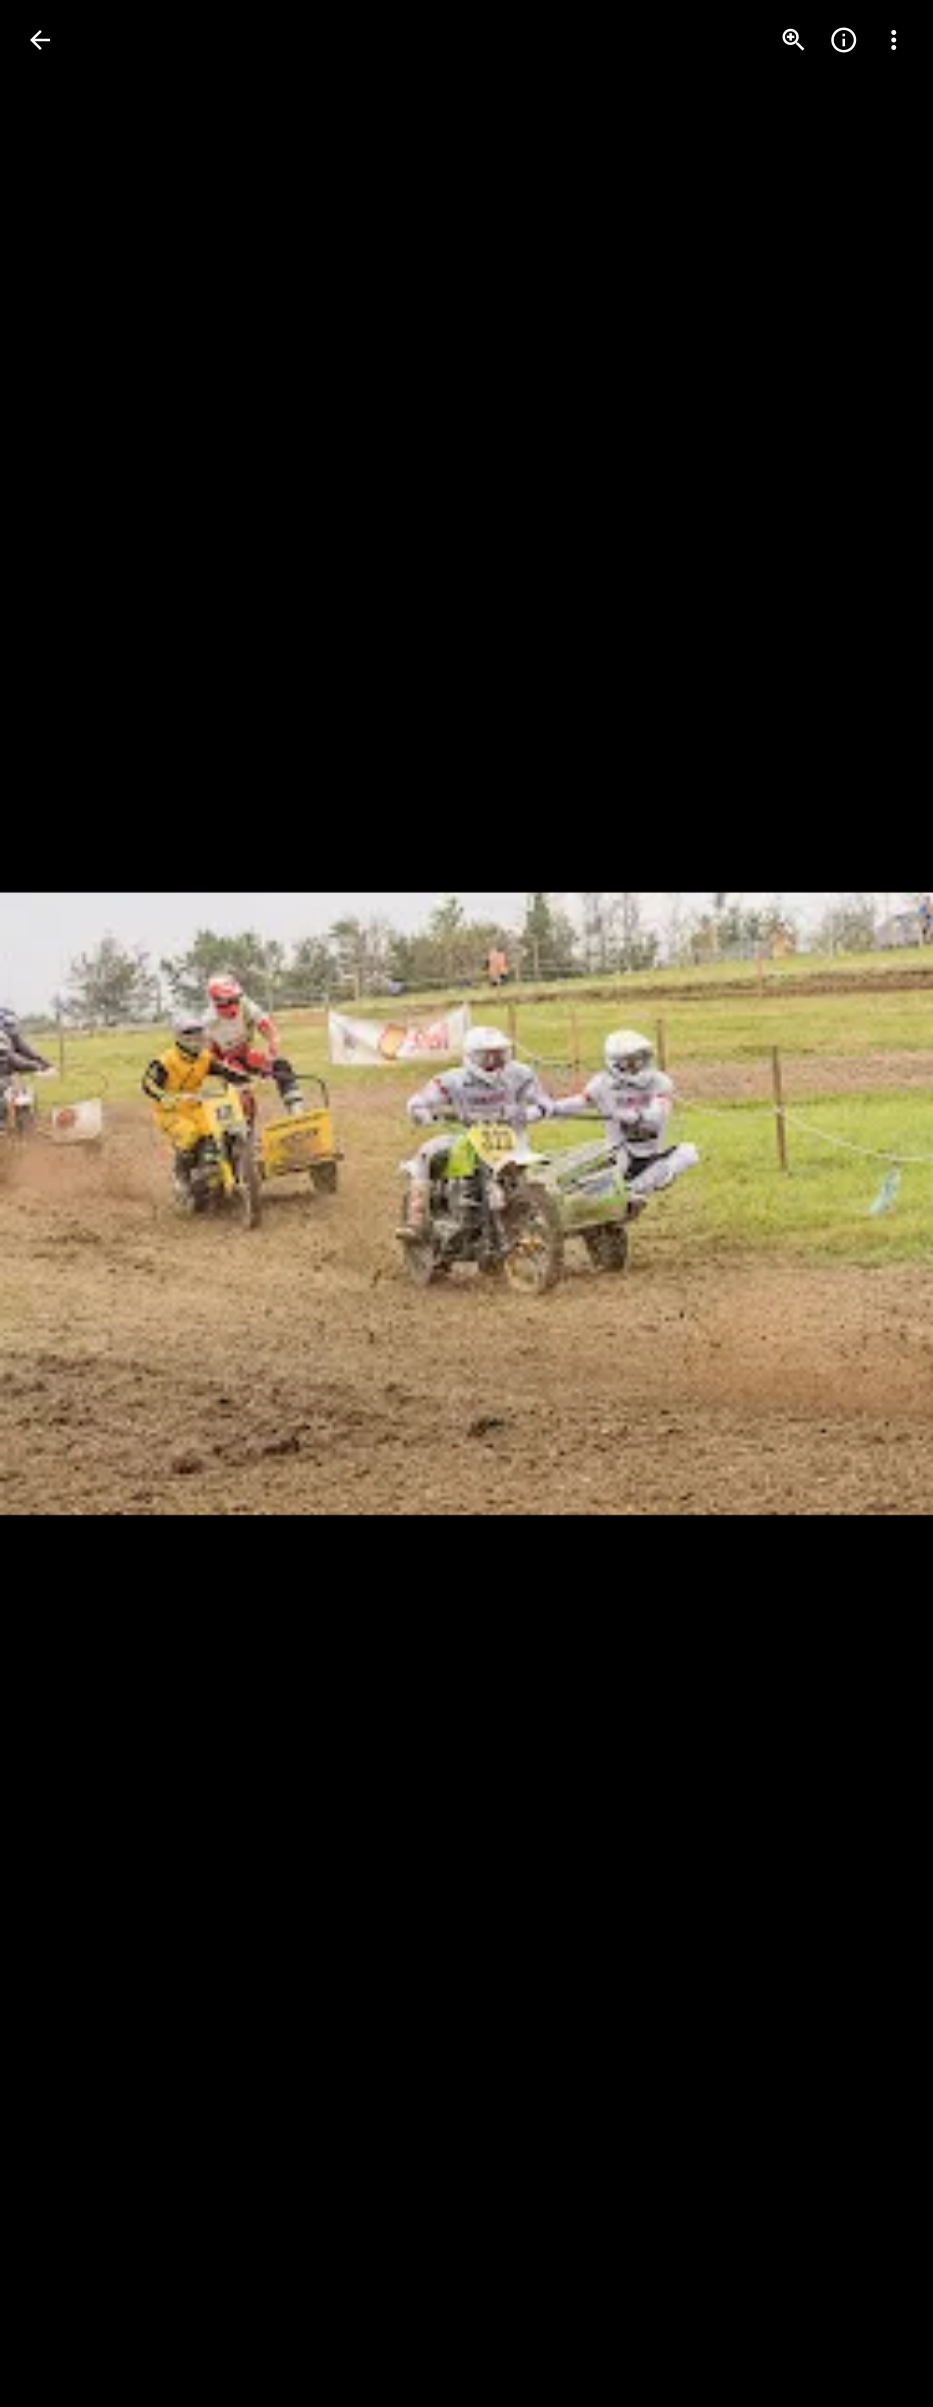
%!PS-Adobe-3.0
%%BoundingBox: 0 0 933 2407
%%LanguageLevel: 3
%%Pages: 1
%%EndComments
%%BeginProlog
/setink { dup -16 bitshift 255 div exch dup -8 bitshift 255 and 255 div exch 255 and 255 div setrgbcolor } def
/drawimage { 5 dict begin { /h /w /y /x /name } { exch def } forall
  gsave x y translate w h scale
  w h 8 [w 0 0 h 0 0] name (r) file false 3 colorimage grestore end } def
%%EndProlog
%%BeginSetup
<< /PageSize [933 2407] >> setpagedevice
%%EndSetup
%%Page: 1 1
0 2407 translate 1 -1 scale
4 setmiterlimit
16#000000 setink
0 0 933 2407 rectfill
(img1.raw) 30 30 20 20 drawimage
(img2.raw) 782 28 23 23 drawimage
(img3.raw) 831 27 26 26 drawimage
(img4.raw) 891 30 6 20 drawimage
(img5.raw) 0 891 933 625 drawimage
showpage
%%EOF
